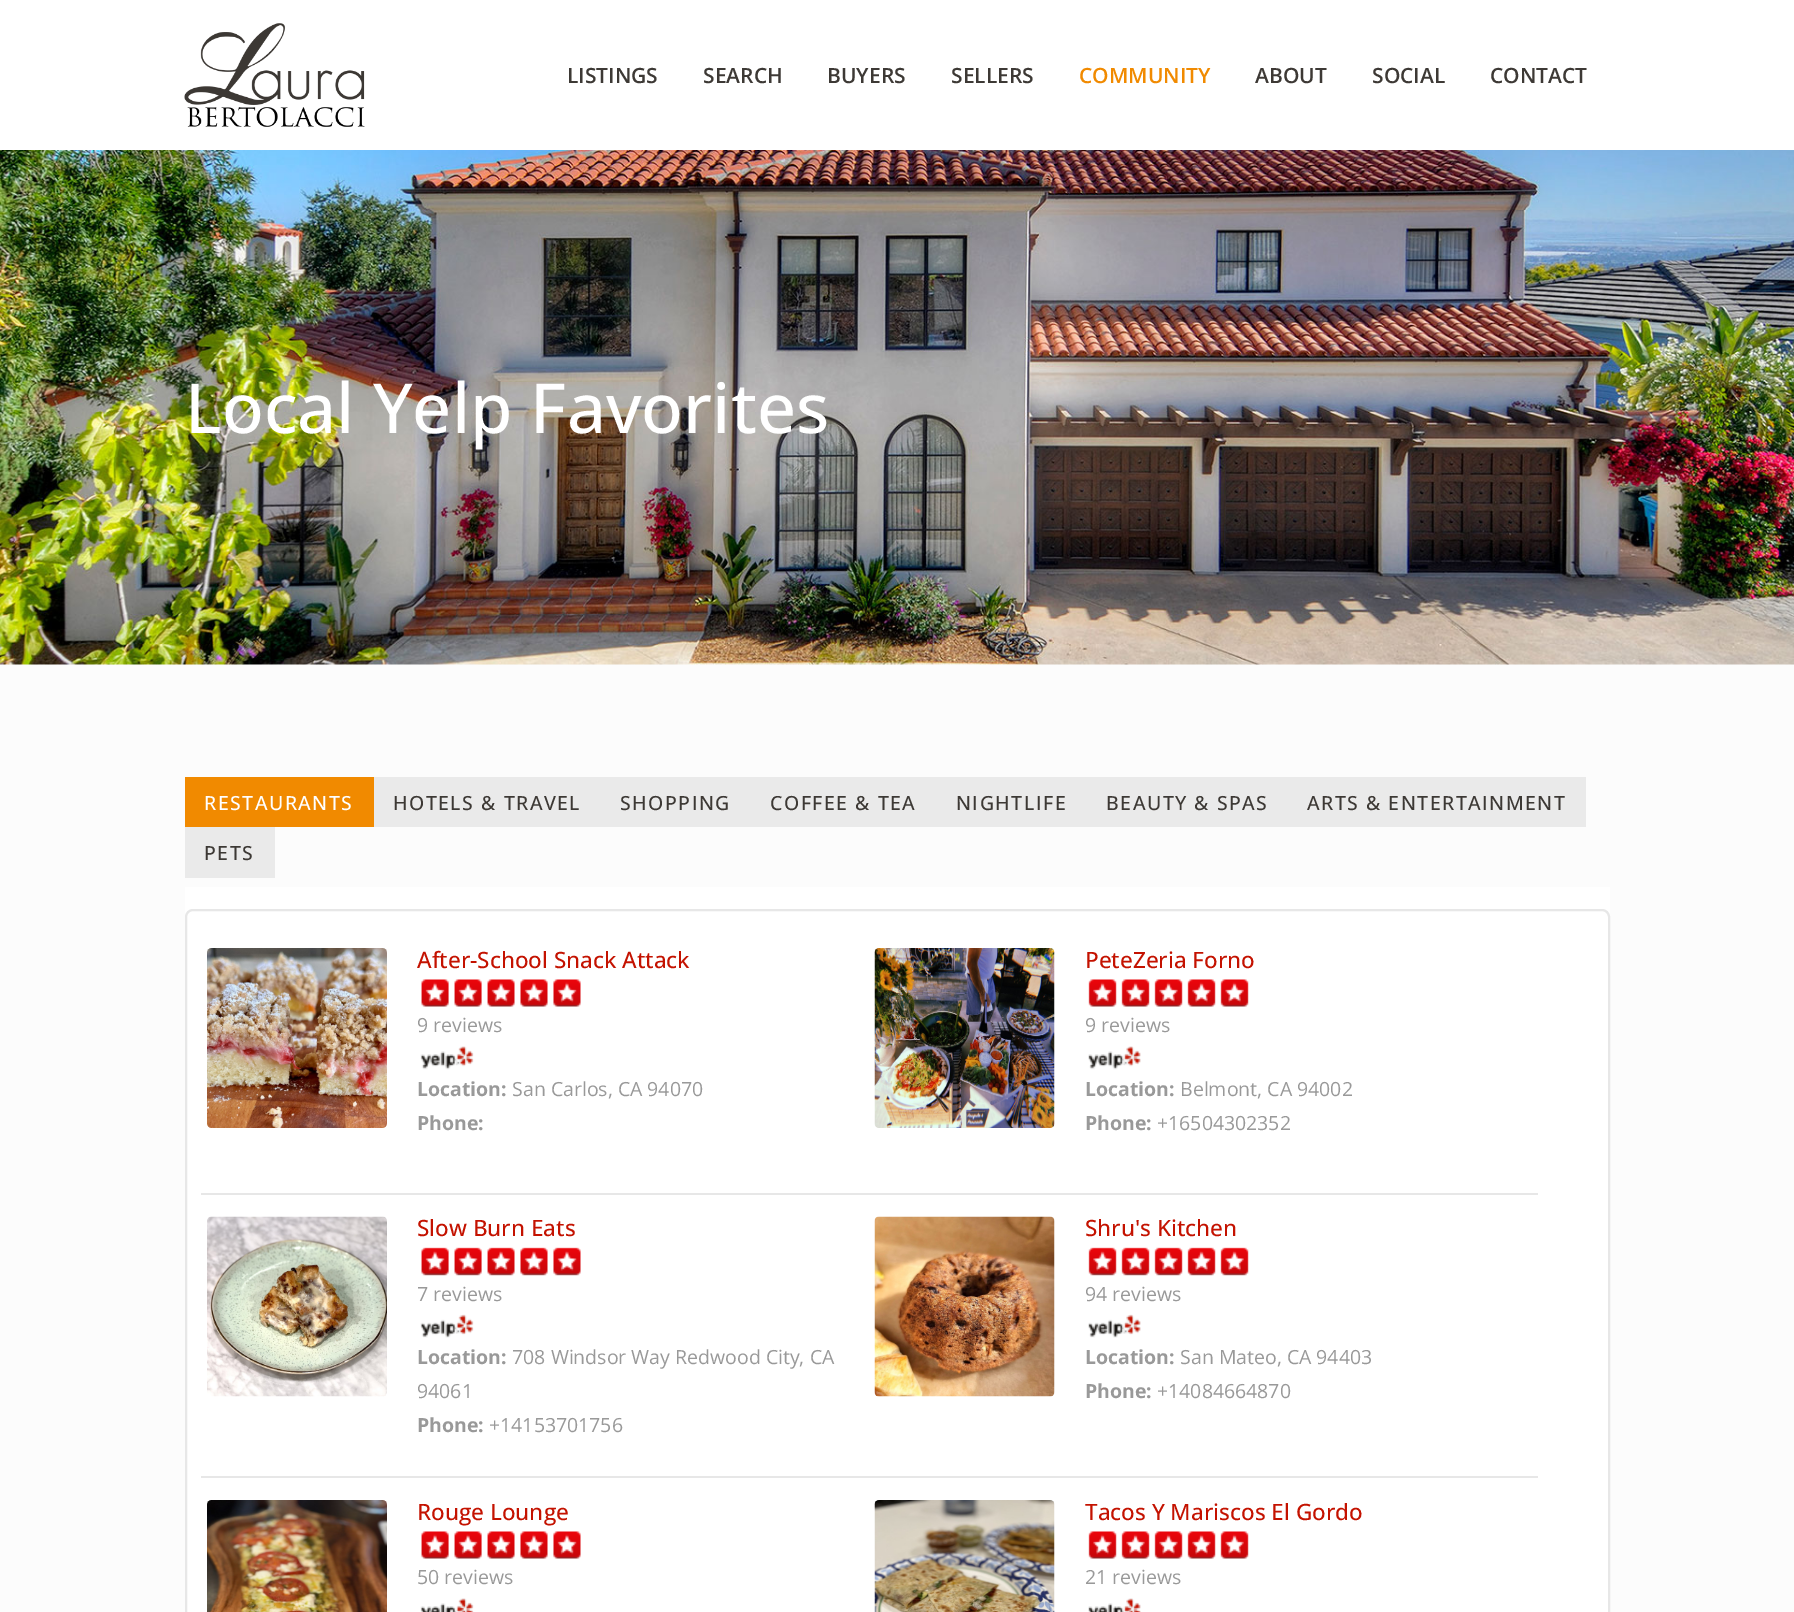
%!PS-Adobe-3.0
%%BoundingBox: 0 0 1794 1612
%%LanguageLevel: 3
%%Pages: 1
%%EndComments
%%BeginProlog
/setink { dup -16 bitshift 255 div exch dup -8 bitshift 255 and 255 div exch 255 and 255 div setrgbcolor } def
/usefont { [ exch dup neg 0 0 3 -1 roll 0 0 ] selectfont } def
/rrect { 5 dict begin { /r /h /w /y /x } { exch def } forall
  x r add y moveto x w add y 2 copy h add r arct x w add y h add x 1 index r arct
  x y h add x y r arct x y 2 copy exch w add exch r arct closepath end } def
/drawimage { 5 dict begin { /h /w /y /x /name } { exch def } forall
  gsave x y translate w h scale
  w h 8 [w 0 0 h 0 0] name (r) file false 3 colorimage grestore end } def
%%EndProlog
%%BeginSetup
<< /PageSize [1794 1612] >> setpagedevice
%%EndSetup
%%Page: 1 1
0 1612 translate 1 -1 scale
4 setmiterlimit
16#FCFCFC setink
0 0 1794 1612 rectfill
16#FFFFFF setink
0 0 1794 150 rectfill
(img1.raw) 184 23 181 104 drawimage
/OpenSans-SemiBold 21 usefont
16#3D3935 setink
[
    [(LISTINGS) 567 83]
    [(SEARCH) 703 83]
    [(BUYERS) 827 83]
    [(SELLERS) 951 83]
] { aload pop moveto show } forall
16#F18A00 setink
1079 83 moveto (COMMUNITY) show
16#3D3935 setink
[
    [(ABOUT) 1255 83]
    [(SOCIAL) 1372 83]
    [(CONTACT) 1490 83]
] { aload pop moveto show } forall
(img2.raw) 0 150 1794 515 drawimage
/OpenSans-Medium 69 usefont
16#FFFFFF setink
185 433 moveto (Local Yelp Favorites) show
16#F18A00 setink
185 777 189 50 rectfill
/OpenSans-Medium 19.5 usefont
16#FFFFFF setink
204 810 moveto 1.5 0 (RESTAURANTS) ashow
16#EAEAEA setink
374 777 1212 50 rectfill
16#3D3935 setink
393 810 moveto 1.5 0 (HOTELS & TRAVEL) ashow
620 810 moveto 1.5 0 (SHOPPING) ashow
770 810 moveto 1.5 0 (COFFEE & TEA) ashow
956 810 moveto 1.5 0 (NIGHTLIFE) ashow
1106 810 moveto 1.5 0 (BEAUTY & SPAS) ashow
1307 810 moveto 1.5 0 (ARTS & ENTERTAINMENT) ashow
16#EAEAEA setink
185 827 90 51 rectfill
16#3D3935 setink
204 860 moveto 1.5 0 (PETS) ashow
16#FFFFFF setink
185 887 1425 725 rectfill
16#E7E7E7 setink
2 setlinewidth
186 910 1423 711 7 rrect stroke
(img3.raw) 207 948 180 180 drawimage
/OpenSans-Medium 22.5 usefont
16#C41200 setink
417 968 moveto (After-School Snack Attack) show
(img4.raw) 421 979 160 28 drawimage
/OpenSans-Regular 19.5 usefont
16#999999 setink
417 1032 moveto (9 reviews) show
(img5.raw) 420 1046 54 24 drawimage
/OpenSans-Bold 19.5 usefont
417 1096 moveto (Location:) show
/OpenSans-Regular 19.5 usefont
512 1096 moveto (San Carlos, CA 94070) show
/OpenSans-Bold 19.5 usefont
417 1130 moveto (Phone:) show
(img6.raw) 874 948 181 180 drawimage
/OpenSans-Medium 22.5 usefont
16#C41200 setink
1085 968 moveto (PeteZeria Forno) show
(img7.raw) 1088 979 161 28 drawimage
/OpenSans-Regular 19.5 usefont
16#999999 setink
1085 1032 moveto (9 reviews) show
(img8.raw) 1088 1046 53 24 drawimage
/OpenSans-Bold 19.5 usefont
1085 1096 moveto (Location:) show
/OpenSans-Regular 19.5 usefont
1180 1096 moveto (Belmont, CA 94002) show
/OpenSans-Bold 19.5 usefont
1085 1130 moveto (Phone:) show
/OpenSans-Regular 19.5 usefont
1157 1130 moveto (+16504302352) show
16#E7E7E7 setink
201 1193 1337 2 rectfill
(img9.raw) 207 1216 180 181 drawimage
/OpenSans-Medium 22.5 usefont
16#C41200 setink
417 1236 moveto (Slow Burn Eats) show
(img10.raw) 421 1247 160 29 drawimage
/OpenSans-Regular 19.5 usefont
16#999999 setink
417 1301 moveto (7 reviews) show
(img11.raw) 420 1314 54 24 drawimage
/OpenSans-Bold 19.5 usefont
417 1364 moveto (Location:) show
/OpenSans-Regular 19.5 usefont
512 1364 moveto (708 Windsor Way Redwood City, CA) show
417 1398 moveto (94061) show
/OpenSans-Bold 19.5 usefont
417 1432 moveto (Phone:) show
/OpenSans-Regular 19.5 usefont
489 1432 moveto (+14153701756) show
(img12.raw) 874 1216 181 181 drawimage
/OpenSans-Medium 22.5 usefont
16#C41200 setink
1085 1236 moveto (Shru's Kitchen) show
(img13.raw) 1088 1247 161 29 drawimage
/OpenSans-Regular 19.5 usefont
16#999999 setink
1085 1301 moveto (94 reviews) show
(img14.raw) 1088 1314 53 24 drawimage
/OpenSans-Bold 19.5 usefont
1085 1364 moveto (Location:) show
/OpenSans-Regular 19.5 usefont
1180 1364 moveto (San Mateo, CA 94403) show
/OpenSans-Bold 19.5 usefont
1085 1398 moveto (Phone:) show
/OpenSans-Regular 19.5 usefont
1157 1398 moveto (+14084664870) show
16#E7E7E7 setink
201 1476 1337 2 rectfill
(img15.raw) 207 1500 180 112 drawimage
/OpenSans-Medium 22.5 usefont
16#C41200 setink
417 1520 moveto (Rouge Lounge) show
(img4.raw) 421 1531 160 28 drawimage
/OpenSans-Regular 19.5 usefont
16#999999 setink
417 1584 moveto (50 reviews) show
(img16.raw) 420 1598 54 14 drawimage
(img17.raw) 874 1500 181 112 drawimage
/OpenSans-Medium 22.5 usefont
16#C41200 setink
1085 1520 moveto (Tacos Y Mariscos El Gordo) show
(img7.raw) 1088 1531 161 28 drawimage
/OpenSans-Regular 19.5 usefont
16#999999 setink
1085 1584 moveto (21 reviews) show
(img18.raw) 1088 1598 53 14 drawimage
showpage
%%EOF
